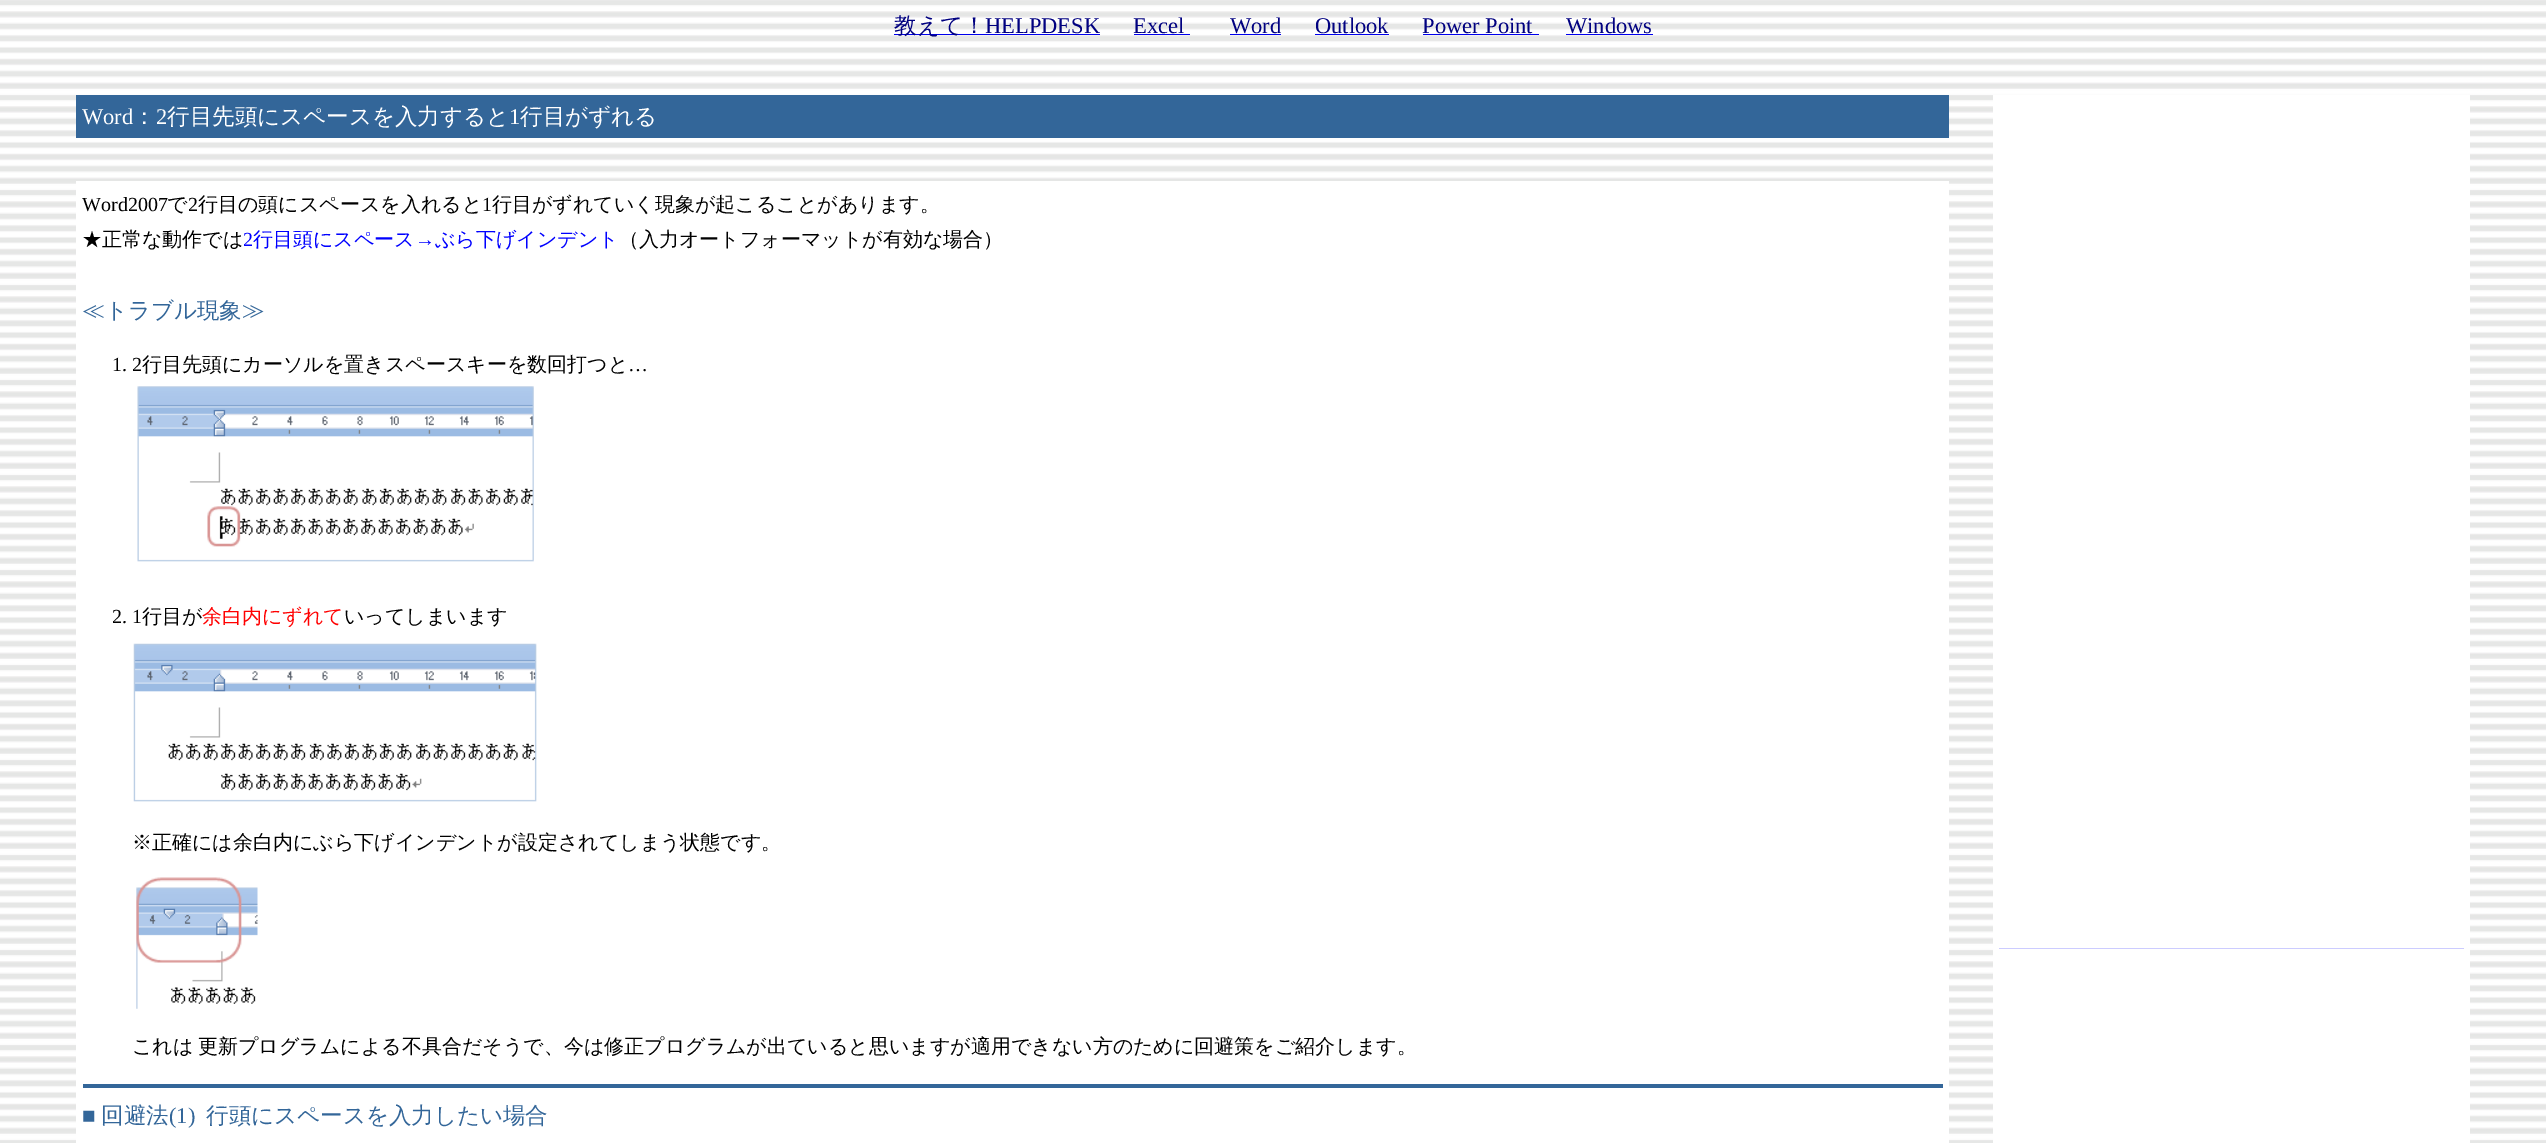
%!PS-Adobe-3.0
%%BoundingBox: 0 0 2546 1143
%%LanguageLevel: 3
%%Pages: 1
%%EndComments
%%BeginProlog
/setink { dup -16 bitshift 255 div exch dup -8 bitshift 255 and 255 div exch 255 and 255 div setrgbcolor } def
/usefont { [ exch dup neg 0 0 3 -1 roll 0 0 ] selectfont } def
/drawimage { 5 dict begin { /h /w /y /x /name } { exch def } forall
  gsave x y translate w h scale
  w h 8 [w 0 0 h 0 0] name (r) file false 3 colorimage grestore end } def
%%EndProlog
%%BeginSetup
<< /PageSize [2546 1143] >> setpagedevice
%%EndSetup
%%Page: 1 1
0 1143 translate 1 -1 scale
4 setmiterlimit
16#FFFFFF setink
0 0 2546 1143 rectfill
(img1.raw) 0 0 2546 1143 drawimage
16#0000EE setink
894 34 206 1 rectfill
/WenQuanYiZenHei-Medium 22.5 usefont
16#000080 setink
894 33 moveto (教えて！) show
/LiberationSerif-Regular 22.5 usefont
985 33 moveto (HELPDESK) show
1133 33 moveto (Excel) show
16#0000EE setink
1134 34 56 1 rectfill
16#000080 setink
1230 33 moveto (Word) show
16#0000EE setink
1230 34 51 1 rectfill
16#000080 setink
1315 33 moveto (Outlook) show
16#0000EE setink
1315 34 74 1 rectfill
16#000080 setink
1422 33 moveto (Power Point) show
16#0000EE setink
1423 34 116 1 rectfill
16#000080 setink
1566 33 moveto (Windows) show
16#0000EE setink
1566 34 87 1 rectfill
16#336699 setink
76 95 1873 43 rectfill
16#FFFFFF setink
82 124 moveto (Word) show
/WenQuanYiZenHei-Medium 22.5 usefont
133 124 moveto (：) show
/LiberationSerif-Regular 22.5 usefont
156 124 moveto (2) show
/WenQuanYiZenHei-Medium 22.5 usefont
167 124 moveto (行目先頭にスペースを入力すると) show
/LiberationSerif-Regular 22.5 usefont
509 124 moveto (1) show
/WenQuanYiZenHei-Medium 22.5 usefont
520 124 moveto (行目がずれる) show
[
    [1993 95 477 1048 16#FFFFFF]
    [1999 948 465 1 16#CCCCFF]
    [76 181 1873 962 16#FFFFFF]
] { aload pop setink rectfill } forall
/LiberationSerif-Regular 20 usefont
16#000000 setink
82 211 moveto (Word2007) show
/WenQuanYiZenHei-Medium 20 usefont
167 211 moveto (で) show
/LiberationSerif-Regular 20 usefont
188 211 moveto (2) show
/WenQuanYiZenHei-Medium 20 usefont
198 211 moveto (行目の頭にスペースを入れると) show
/LiberationSerif-Regular 20 usefont
482 211 moveto (1) show
/WenQuanYiZenHei-Medium 20 usefont
492 211 moveto (行目がずれていく現象が起こることがあります。) show
82 246 moveto (★正常な動作では) show
/LiberationSerif-Regular 20 usefont
16#0000FF setink
243 246 moveto (2) show
/WenQuanYiZenHei-Medium 20 usefont
253 246 moveto (行目頭にスペース) show
/LiberationSerif-Regular 20 usefont
415 246 moveto (→) show
/WenQuanYiZenHei-Medium 20 usefont
435 246 moveto (ぶら下げインデント) show
16#000000 setink
619 246 moveto (（入力オートフォーマットが有効な場合）) show
/WenQuanYiZenHei-Medium 22.5 usefont
16#336699 setink
82 318 moveto (≪トラブル現象≫) show
/LiberationSerif-Regular 20 usefont
16#000000 setink
112 371 moveto (1. 2) show
/WenQuanYiZenHei-Medium 20 usefont
142 371 moveto (行目先頭にカーソルを置きスペースキーを数回打つと) show
/LiberationSerif-Regular 20 usefont
628 371 moveto (…) show
(img2.raw) 137 386 397 176 drawimage
112 623 moveto (2. 1) show
/WenQuanYiZenHei-Medium 20 usefont
142 623 moveto (行目が) show
16#FF0000 setink
202 623 moveto (余白内にずれて) show
16#000000 setink
344 623 moveto (いってしまいます) show
(img3.raw) 133 643 404 159 drawimage
132 849 moveto (※正確には余白内にぶら下げインデントが設定されてしまう状態です。) show
(img4.raw) 136 877 122 132 drawimage
132 1053 moveto (これは) show
198 1053 moveto (更新プログラムによる不具合だそうで、今は修正プログラムが出ていると思いますが適用できない方のために回避策をご紹介します。) show
16#336699 setink
83 1084 1860 4 rectfill
/LiberationSerif-Regular 22.5 usefont
82 1123 moveto (■) show
/WenQuanYiZenHei-Medium 22.5 usefont
101 1123 moveto (回避法) show
/LiberationSerif-Regular 22.5 usefont
169 1123 moveto (\(1\)) show
/WenQuanYiZenHei-Medium 22.5 usefont
206 1123 moveto (行頭にスペースを入力したい場合) show
showpage
%%EOF
